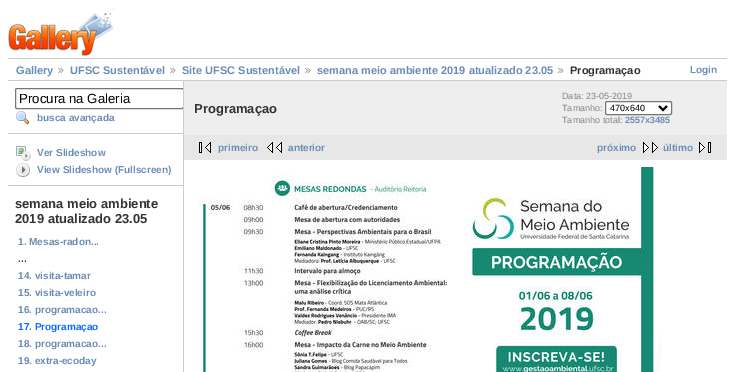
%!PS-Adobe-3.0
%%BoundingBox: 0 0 735 372
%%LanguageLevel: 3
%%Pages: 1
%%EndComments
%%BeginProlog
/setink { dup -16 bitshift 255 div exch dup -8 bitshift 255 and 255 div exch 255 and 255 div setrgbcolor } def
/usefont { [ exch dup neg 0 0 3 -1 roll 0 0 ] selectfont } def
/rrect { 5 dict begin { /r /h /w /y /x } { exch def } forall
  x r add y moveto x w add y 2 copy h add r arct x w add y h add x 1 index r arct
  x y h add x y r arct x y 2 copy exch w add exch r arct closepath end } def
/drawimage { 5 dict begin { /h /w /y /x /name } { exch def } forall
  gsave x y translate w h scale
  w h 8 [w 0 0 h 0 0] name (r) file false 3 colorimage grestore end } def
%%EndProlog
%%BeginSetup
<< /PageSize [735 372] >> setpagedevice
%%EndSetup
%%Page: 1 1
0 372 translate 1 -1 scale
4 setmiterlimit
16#FFFFFF setink
0 0 735 372 rectfill
(img1.raw) 8 8 107 48 drawimage
16#CCCCCC setink
8 58 719 1 rectfill
8 80 719 1 rectfill
/LiberationSans-Bold 11 usefont
16#6B8CB7 setink
16 74 moveto (Gallery) show
(img2.raw) 58 68 6 5 drawimage
70 74 moveto (UFSC Sustentável) show
(img2.raw) 170 68 6 5 drawimage
182 74 moveto (Site UFSC Sustentável) show
(img2.raw) 305 68 6 5 drawimage
317 74 moveto (semana meio ambiente 2019 atualizado 23.05) show
(img2.raw) 558 68 6 5 drawimage
16#333333 setink
570 74 moveto (Programaçao) show
/LiberationSans-Bold 10 usefont
16#6B8CB7 setink
690 73 moveto (Login) show
16#CCCCCC setink
183 81 1 291 rectfill
8 133 175 1 rectfill
gsave
8 81 175 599 rectclip
16#767676 setink
15.5 88.5 168 20 1.5 rrect stroke
grestore
/LiberationSans-Regular 13.25 usefont
16#000000 setink
19 103 moveto (Procura na Galeria) show
(img3.raw) 16 111 13 14 drawimage
/LiberationSans-Bold 10 usefont
16#6B8CB7 setink
37 121 moveto (busca avançada) show
16#CCCCCC setink
8 185 175 1 rectfill
(img4.raw) 16 146 15 15 drawimage
16#6B8CB7 setink
37 156 moveto (Ver Slideshow) show
(img5.raw) 16 163 14 14 drawimage
37 173 moveto (View Slideshow \(Fullscreen\)) show
/LiberationSans-Bold 13 usefont
16#333333 setink
15 208 moveto (semana meio ambiente) show
15 223 moveto (2019 atualizado 23.05) show
/LiberationSans-Bold 10 usefont
16#6B8CB7 setink
18 245 moveto (1. Mesas-radon...) show
16#333333 setink
18 262 moveto (...) show
16#6B8CB7 setink
[
    [(14. visita-tamar) 18 279]
    [(15. visita-veleiro) 18 296]
    [(16. programacao...) 18 313]
] { aload pop moveto show } forall
16#0B6CFF setink
18 330 moveto (17. Programaçao) show
16#6B8CB7 setink
18 347 moveto (18. programacao...) show
18 364 moveto (19. extra-ecoday) show
16#EEEEEE setink
184 81 543 54 rectfill
/LiberationSans-Bold 13 usefont
16#333333 setink
194 113 moveto (Programaçao) show
/LiberationSans-Regular 9 usefont
16#888888 setink
562 99 moveto (Data: 23-05-2019) show
562 111 moveto (Tamanho:) show
16#FFFFFF setink
605.5 101.5 66 13 1.5 rrect gsave fill grestore
16#767676 setink
stroke
16#000000 setink
2 setlinewidth
659 106 moveto 663 110 lineto 667 106 lineto stroke
610 111 moveto (470x640) show
16#888888 setink
562 123 moveto (Tamanho total:) show
/LiberationSans-Bold 9 usefont
16#6B8CB7 setink
625 123 moveto (2557x3485) show
16#E7E7E7 setink
184 135 543 25 rectfill
(img6.raw) 199 142 12 11 drawimage
/LiberationSans-Bold 10 usefont
16#6B8CB7 setink
218 151 moveto (primeiro) show
(img7.raw) 267 142 15 11 drawimage
288 151 moveto (anterior) show
597 151 moveto (próximo) show
(img8.raw) 643 142 15 11 drawimage
663 151 moveto (último) show
(img9.raw) 699 142 12 11 drawimage
(img10.raw) 199 167 462 205 drawimage
showpage
%%EOF
